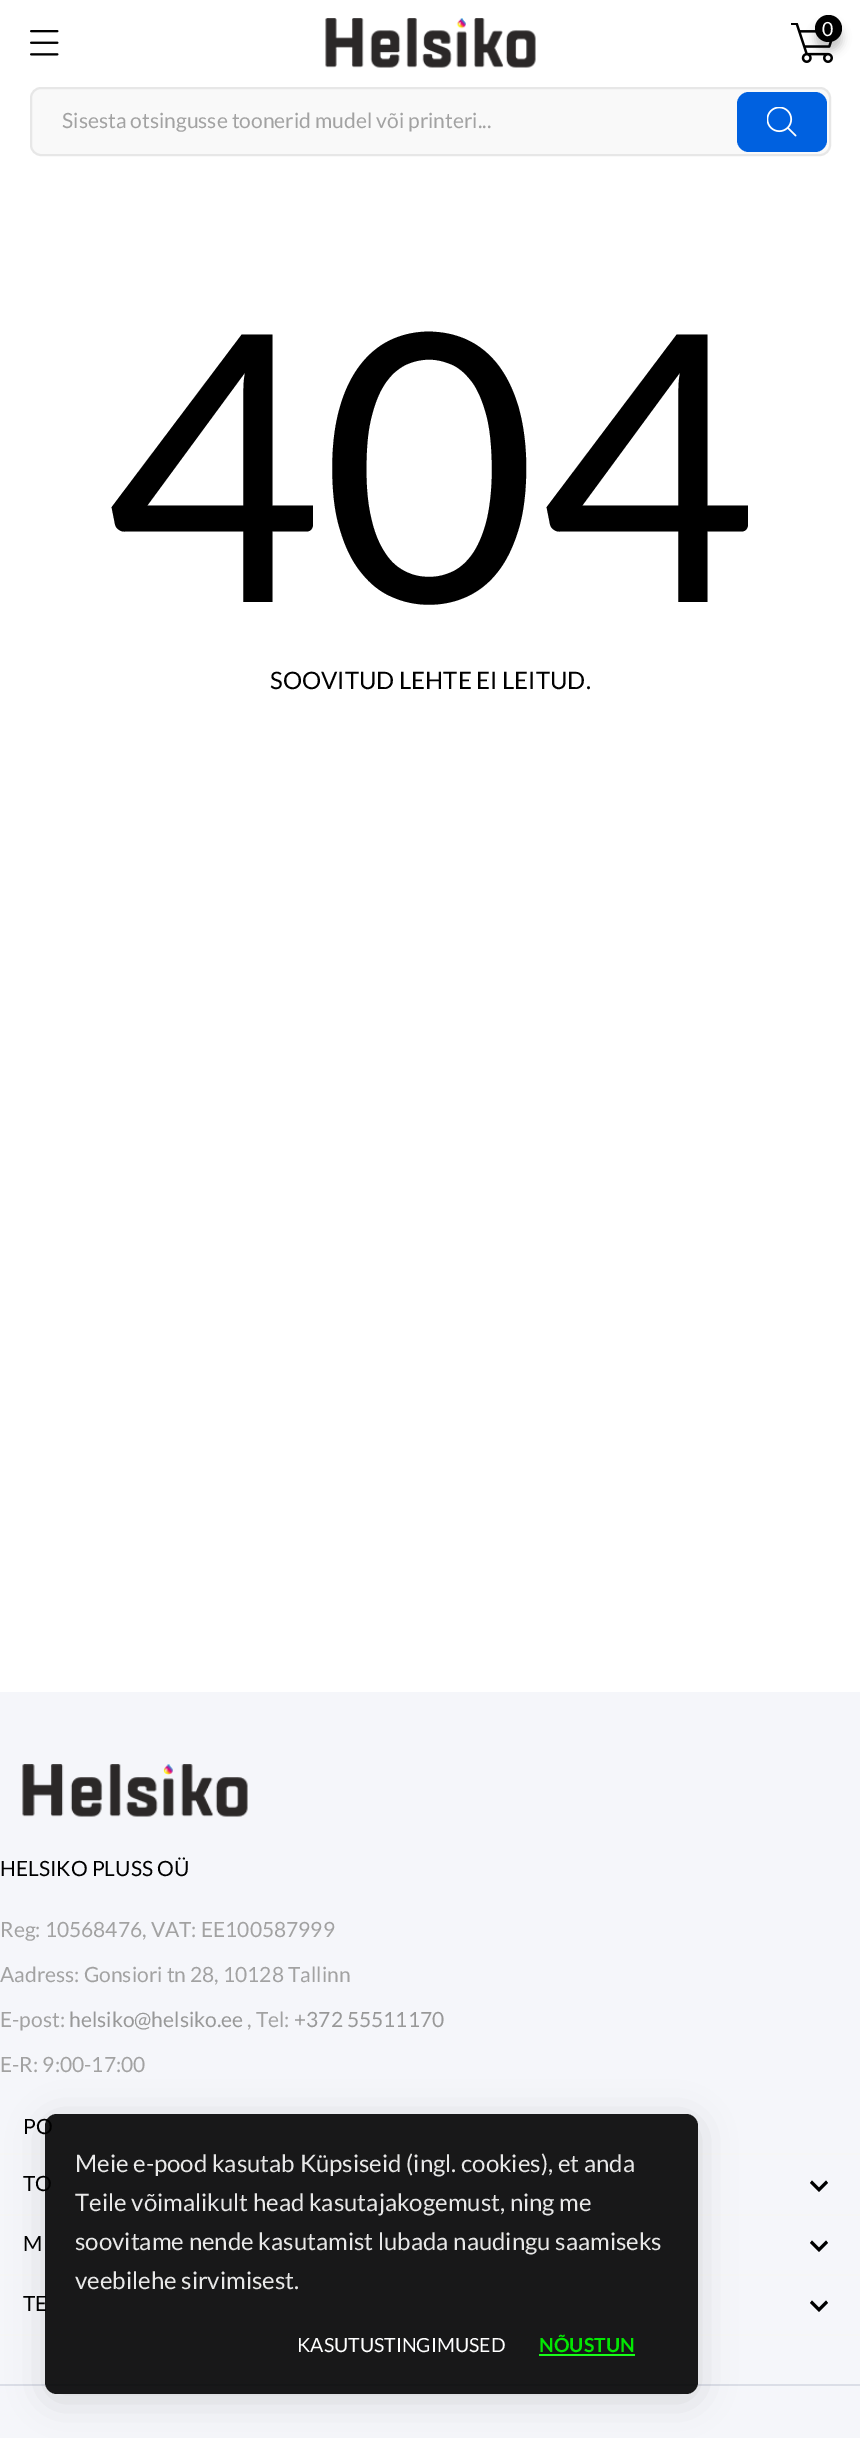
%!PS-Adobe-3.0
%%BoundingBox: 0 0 860 2438
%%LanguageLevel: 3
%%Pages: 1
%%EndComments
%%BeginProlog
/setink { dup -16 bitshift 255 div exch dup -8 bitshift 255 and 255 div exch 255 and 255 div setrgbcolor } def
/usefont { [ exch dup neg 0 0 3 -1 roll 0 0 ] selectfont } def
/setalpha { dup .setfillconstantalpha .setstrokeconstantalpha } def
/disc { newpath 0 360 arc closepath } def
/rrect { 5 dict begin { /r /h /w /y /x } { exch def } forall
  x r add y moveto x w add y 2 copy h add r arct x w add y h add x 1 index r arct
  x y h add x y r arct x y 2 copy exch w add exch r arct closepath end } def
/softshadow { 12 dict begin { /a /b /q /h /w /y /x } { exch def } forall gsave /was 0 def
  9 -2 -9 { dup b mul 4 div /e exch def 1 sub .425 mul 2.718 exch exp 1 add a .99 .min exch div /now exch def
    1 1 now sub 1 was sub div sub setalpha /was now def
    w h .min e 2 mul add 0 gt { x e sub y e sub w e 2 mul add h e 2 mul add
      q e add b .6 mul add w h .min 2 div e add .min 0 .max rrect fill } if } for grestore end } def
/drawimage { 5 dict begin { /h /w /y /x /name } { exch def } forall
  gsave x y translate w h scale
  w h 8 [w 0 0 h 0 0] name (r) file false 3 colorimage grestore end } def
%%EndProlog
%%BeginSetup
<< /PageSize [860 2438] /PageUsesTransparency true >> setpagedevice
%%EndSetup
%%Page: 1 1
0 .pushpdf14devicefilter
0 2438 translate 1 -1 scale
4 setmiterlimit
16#FFFFFF setink
0 0 860 2438 rectfill
(img1.raw) 30 30 29 26 drawimage
(img2.raw) 325 18 211 50 drawimage
(img3.raw) 791 23 42 40 drawimage
16#000000 setink
815 24 27 27 13.5 4.5 0.22 softshadow
828.5 28.5 13.5 disc fill
/Lato-Regular 19.5 usefont
16#FFFFFF setink
822 36 moveto (0) show
16#F9F9F9 setink
31 88 799 67 10 rrect gsave fill grestore
16#E7E7E7 setink
2 setlinewidth
stroke
/Lato-Regular 21 usefont
16#A2A2A2 setink
62 128 moveto (Sisesta otsingusse toonerid mudel või printeri...) show
16#0061E0 setink
737 92 90 60 12 rrect fill
(img4.raw) 767 107 30 30 drawimage
/Lato-Regular 375 usefont
16#000000 setink
104 602 moveto (404) show
/Lato-Regular 24 usefont
270 689 moveto (SOOVITUD LEHTE EI LEITUD.) show
16#F5F6FA setink
0 1692 860 692 rectfill
(img5.raw) 22 1764 226 53 drawimage
/Lato-Regular 21 usefont
16#000000 setink
0 1876 moveto (HELSIKO PLUSS OÜ) show
16#A2A2A2 setink
[
    [(Reg: 10568476, VAT: EE100587999) 0 1937]
    [(Aadress: Gonsiori tn 28, 10128 Tallinn) 0 1982]
    [(E-post:) 0 2027]
] { aload pop moveto show } forall
16#989898 setink
69 2027 moveto (helsiko@helsiko.ee) show
16#A2A2A2 setink
247 2027 moveto (, Tel:) show
16#989898 setink
294 2027 moveto (+372 55511170) show
16#A2A2A2 setink
0 2072 moveto (E-R: 9:00-17:00) show
16#F6F6F6 setink
0 2153 860 2 rectfill
16#000000 setink
23 2134 moveto (PO) show
16#F6F6F6 setink
0 2214 860 2 rectfill
16#000000 setink
23 2191 moveto (TO) show
812 2180.5 moveto 819 2187.5 lineto 826 2180.5 lineto 828 2183 lineto 819 2192 lineto 810 2183 lineto closepath fill
16#F6F6F6 setink
0 2274 860 2 rectfill
16#000000 setink
23 2251 moveto (M) show
812 2240.5 moveto 819 2247.5 lineto 826 2240.5 lineto 828 2243 lineto 819 2252 lineto 810 2243 lineto closepath fill
16#F6F6F6 setink
0 2334 860 2 rectfill
16#000000 setink
23 2311 moveto (TE) show
812 2300.5 moveto 819 2307.5 lineto 826 2300.5 lineto 828 2303 lineto 819 2312 lineto 810 2303 lineto closepath fill
16#F5F6FA setink
0 2386 860 52 rectfill
16#DBDEE7 setink
0 2384 860 2 rectfill
gsave
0 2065 moveto 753 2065 lineto 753 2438 lineto 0 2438 lineto closepath 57 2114 moveto 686 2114 lineto 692.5 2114 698 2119.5 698 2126 curveto 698 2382 lineto 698 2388.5 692.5 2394 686 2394 curveto 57 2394 lineto 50.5 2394 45 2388.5 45 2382 curveto 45 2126 lineto 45 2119.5 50.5 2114 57 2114 curveto closepath eoclip newpath
16#000000 setink
45 2120 653 280 12 18 0.14 softshadow
grestore
0.9 setalpha
16#000000 setink
45 2114 653 280 12 rrect fill
/Lato-Regular 24 usefont
1 setalpha
16#E8E8E8 setink
[
    [(Meie e-pood kasutab Küpsiseid \(ingl. cookies\), et anda) 75 2172]
    [(Teile võimalikult head kasutajakogemust, ning me) 75 2211]
    [(soovitame nende kasutamist lubada naudingu saamiseks) 75 2250]
    [(veebilehe sirvimisest.) 75 2289]
] { aload pop moveto show } forall
/Lato-Regular 19.5 usefont
16#FFFFFF setink
297 2352 moveto (KASUTUSTINGIMUSED) show
/Lato-Bold 19.5 usefont
16#02E802 setink
539 2352 moveto (NÕUSTUN) show
16#19FE19 setink
539 2354 96 2 rectfill
.poppdf14devicefilter showpage
%%EOF
